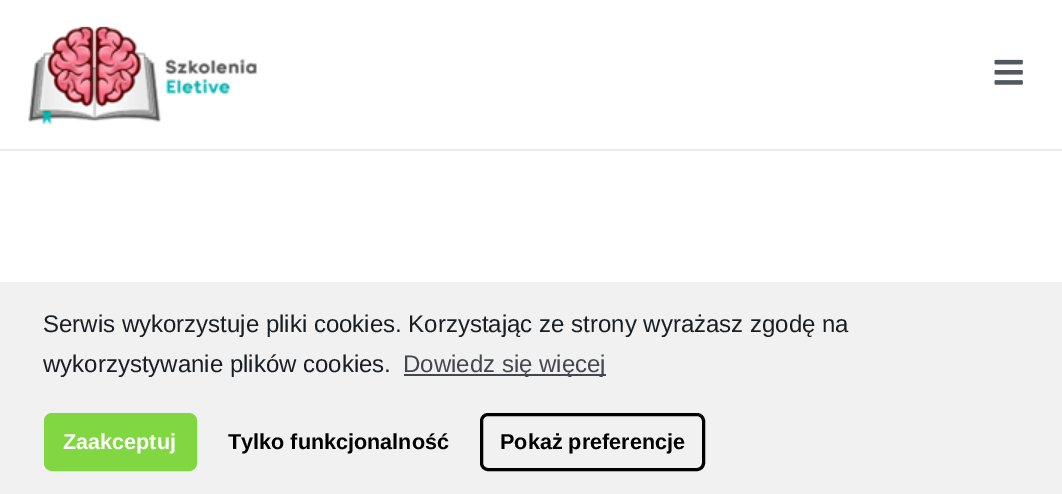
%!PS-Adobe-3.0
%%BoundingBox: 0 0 1062 494
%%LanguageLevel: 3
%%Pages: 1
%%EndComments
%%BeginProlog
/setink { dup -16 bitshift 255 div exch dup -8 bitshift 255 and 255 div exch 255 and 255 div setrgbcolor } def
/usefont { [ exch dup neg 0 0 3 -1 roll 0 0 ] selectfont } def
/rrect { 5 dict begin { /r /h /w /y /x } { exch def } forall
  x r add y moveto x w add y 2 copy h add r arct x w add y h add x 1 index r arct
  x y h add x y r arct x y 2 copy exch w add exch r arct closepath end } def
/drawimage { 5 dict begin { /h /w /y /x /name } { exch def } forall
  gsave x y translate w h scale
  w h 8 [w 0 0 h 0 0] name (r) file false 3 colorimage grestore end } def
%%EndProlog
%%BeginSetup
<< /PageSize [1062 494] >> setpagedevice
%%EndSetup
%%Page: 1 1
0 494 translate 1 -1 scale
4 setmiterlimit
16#FFFFFF setink
0 0 1062 494 rectfill
16#E9ECEF setink
0 149 1062 2 rectfill
(img1.raw) 28 26 229 99 drawimage
(img2.raw) 994 59 29 26 drawimage
16#F1F1F1 setink
0 282 1062 212 rectfill
/LiberationSans-Regular 24 usefont
16#191E23 setink
43 332 moveto (Serwis wykorzystuje pliki cookies. Korzystając ze strony wyrażasz zgodę na) show
43 372 moveto (wykorzystywanie plików cookies.) show
16#44484C setink
404 374 202 2 rectfill
403 372 moveto (Dowiedz się więcej) show
16#81D742 setink
45.5 414.5 150 55 6.5 rrect gsave fill grestore
3 setlinewidth
stroke
/LiberationSans-Bold 21.6 usefont
16#FFFFFF setink
63 449 moveto (Zaakceptuj) show
16#000000 setink
228 449 moveto (Tylko funkcjonalność) show
481.5 414.5 222 55 6.5 rrect stroke
500 449 moveto (Pokaż preferencje) show
showpage
%%EOF
